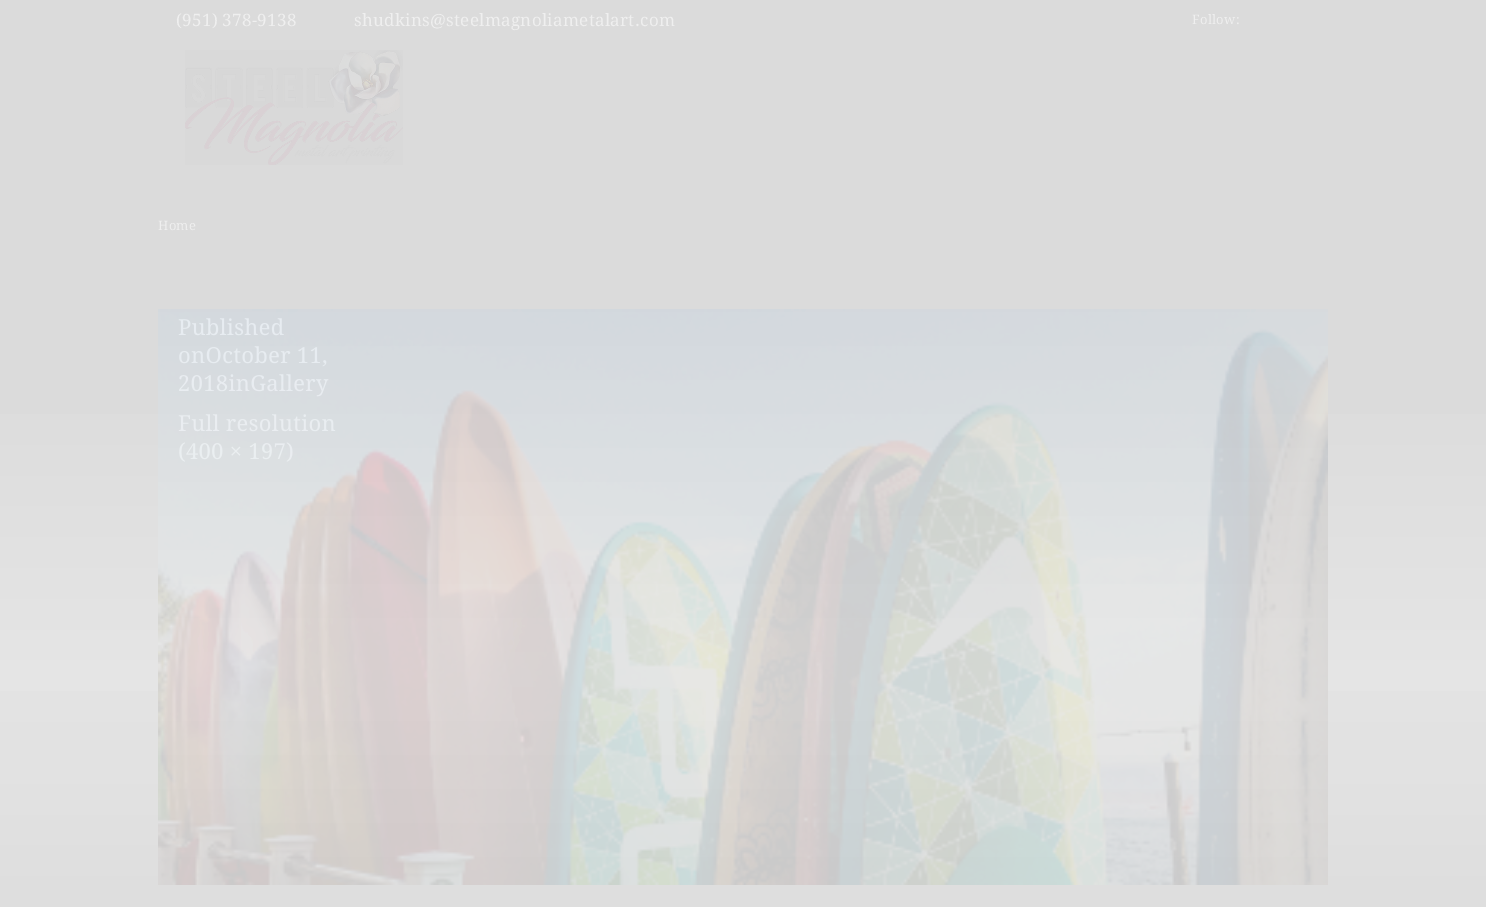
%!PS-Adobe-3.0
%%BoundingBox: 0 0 1486 907
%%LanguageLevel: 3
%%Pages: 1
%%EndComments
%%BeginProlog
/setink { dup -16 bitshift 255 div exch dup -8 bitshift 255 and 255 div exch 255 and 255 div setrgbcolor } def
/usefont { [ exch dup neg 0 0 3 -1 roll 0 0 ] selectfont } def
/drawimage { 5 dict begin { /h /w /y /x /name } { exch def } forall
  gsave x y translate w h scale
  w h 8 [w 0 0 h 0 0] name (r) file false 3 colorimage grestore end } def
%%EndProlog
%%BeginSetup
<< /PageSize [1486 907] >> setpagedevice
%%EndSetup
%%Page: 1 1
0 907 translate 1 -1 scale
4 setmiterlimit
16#DBDBDB setink
0 0 1486 907 rectfill
/DroidSerif-Regular 17 usefont
16#EFEFEF setink
176 26 moveto 0.3 0 (\(951\) 378-9138) ashow
354 26 moveto 0.3 0 (shudkins@steelmagnoliametalart.com) ashow
/DroidSerif-Regular 13 usefont
1192 24 moveto 0.3 0 (Follow:) ashow
(img1.raw) 185 50 218 115 drawimage
158 230 moveto 0.3 0 (Home) ashow
gsave 0 414 moveto 1486 414 lineto 1486 907 lineto 0 907 lineto closepath clip newpath
<< /ShadingType 2 /ColorSpace /DeviceRGB /Coords [743 261 743 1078] /Extend [true true] /Function << /FunctionType 3 /Domain [0 1] /Functions [<< /FunctionType 2 /Domain [0 1] /C0 [0.851 0.851 0.851] /C1 [0.898 0.898 0.898] /N 1 >> << /FunctionType 2 /Domain [0 1] /C0 [0.898 0.898 0.898] /C1 [0.851 0.851 0.851] /N 1 >>] /Bounds [0.5] /Encode [0 1 0 1] >> >> shfill grestore
/DroidSerif-Regular 22 usefont
178 335 moveto 0.3 0 (Published) ashow
178 363 moveto 0.3 0 (onOctober 11,) ashow
178 391 moveto 0.3 0 (2018inGallery) ashow
178 431 moveto 0.3 0 (Full resolution) ashow
(img2.raw) 158 309 1170 576 drawimage
showpage
%%EOF
